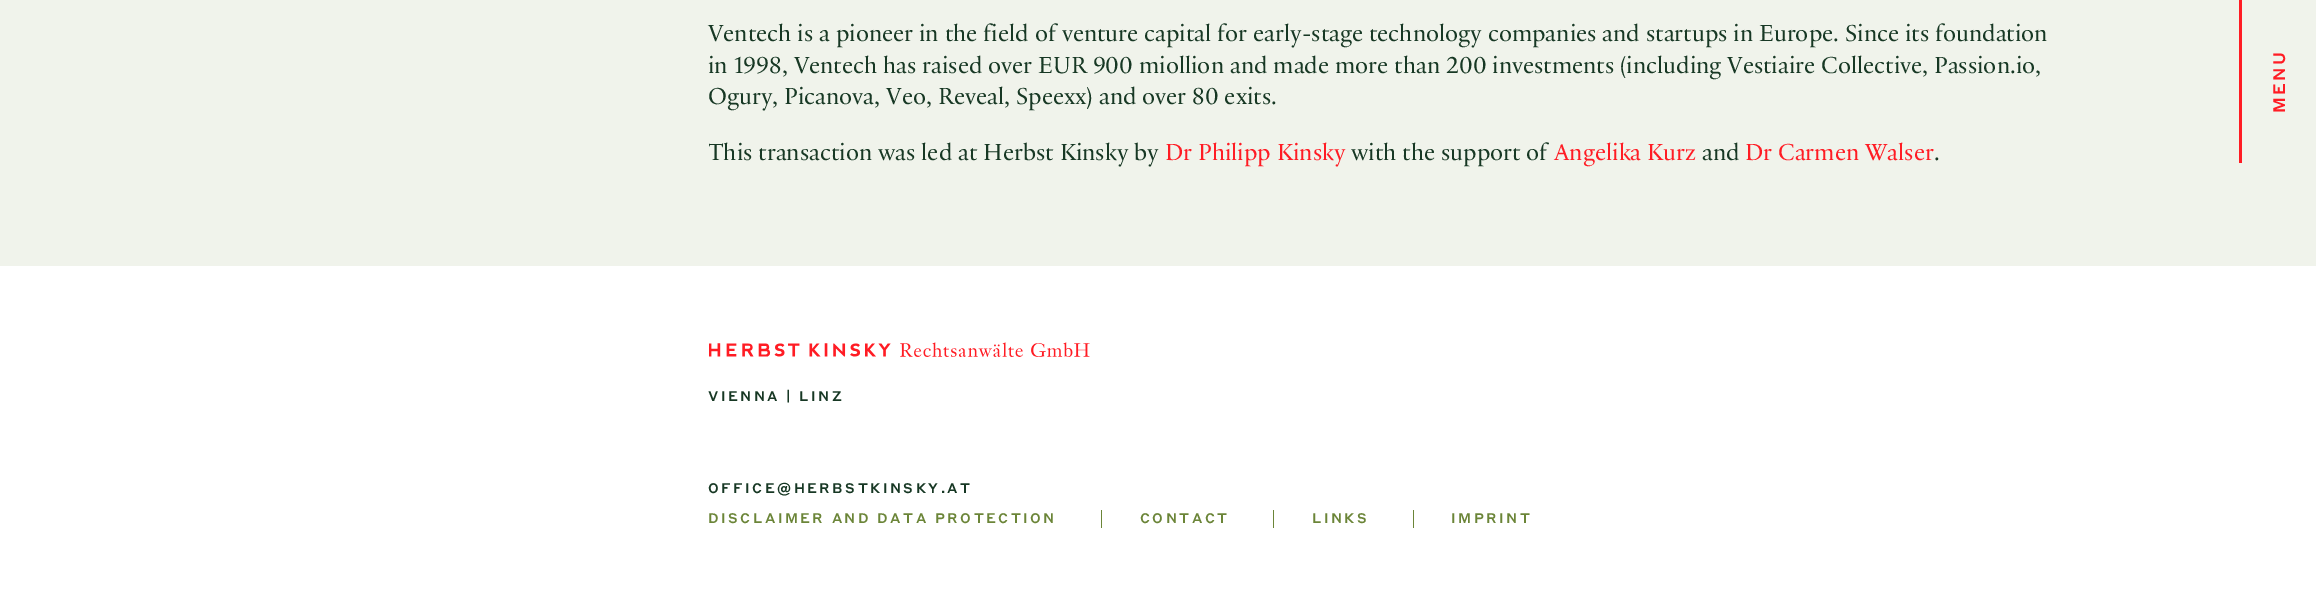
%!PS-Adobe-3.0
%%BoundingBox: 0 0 2316 602
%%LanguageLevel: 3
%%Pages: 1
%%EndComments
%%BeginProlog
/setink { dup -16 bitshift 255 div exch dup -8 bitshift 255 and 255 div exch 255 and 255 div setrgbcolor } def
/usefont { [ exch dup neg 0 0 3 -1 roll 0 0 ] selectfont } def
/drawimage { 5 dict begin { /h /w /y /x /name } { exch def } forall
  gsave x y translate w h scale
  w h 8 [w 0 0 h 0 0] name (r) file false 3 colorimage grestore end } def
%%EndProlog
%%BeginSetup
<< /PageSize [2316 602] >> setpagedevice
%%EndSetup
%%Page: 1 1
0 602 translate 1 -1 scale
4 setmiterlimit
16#FFFFFF setink
0 0 2316 602 rectfill
16#F0F3EB setink
0 0 2316 266 rectfill
/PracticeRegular-Regular 25 usefont
16#173824 setink
[
    [(Ventech is a pioneer in the field of venture capital for early-stage technology companies and startups in Europe. Since its foundation) 708 41]
    [(in 1998, Ventech has raised over EUR 900 miollion and made more than 200 investments \(including Vestiaire Collective, Passion.io,) 708 73]
    [(Ogury, Picanova, Veo, Reveal, Speexx\) and over 80 exits.) 708 104]
] { aload pop moveto show } forall
gsave
709 0 1350 191 rectclip
708 160 moveto (This transaction was led at Herbst Kinsky by) show
grestore
16#FF1C24 setink
1165 160 moveto (Dr Philipp Kinsky) show
16#173824 setink
1351 160 moveto (with the support of) show
16#FF1C24 setink
1554 160 moveto (Angelika Kurz) show
16#173824 setink
1702 160 moveto (and) show
16#FF1C24 setink
1745 160 moveto (Dr Carmen Walser) show
16#173824 setink
1934 160 moveto (.) show
16#FF1C24 setink
2239 0 3 163 rectfill
/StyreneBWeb-Medium 16.5 usefont
gsave 2285 113 translate -90 rotate 0 0 moveto 2.5 0 (MENU) ashow grestore
(img1.raw) 709 342 381 15 drawimage
/StyreneBWeb-Medium 13.75 usefont
16#173824 setink
708 401 moveto 2.5 0 (VIENNA | LINZ) ashow
708 493 moveto 2.5 0 (OFFICE@HERBSTKINSKY.AT) ashow
16#6B8538 setink
708 523 moveto 2.5 0 (DISCLAIMER AND DATA PROTECTION) ashow
1101 510 1 18 rectfill
1140 523 moveto 2.5 0 (CONTACT) ashow
1273 510 1 18 rectfill
1312 523 moveto 2.5 0 (LINKS) ashow
1413 510 1 18 rectfill
1451 523 moveto 2.5 0 (IMPRINT) ashow
showpage
%%EOF
